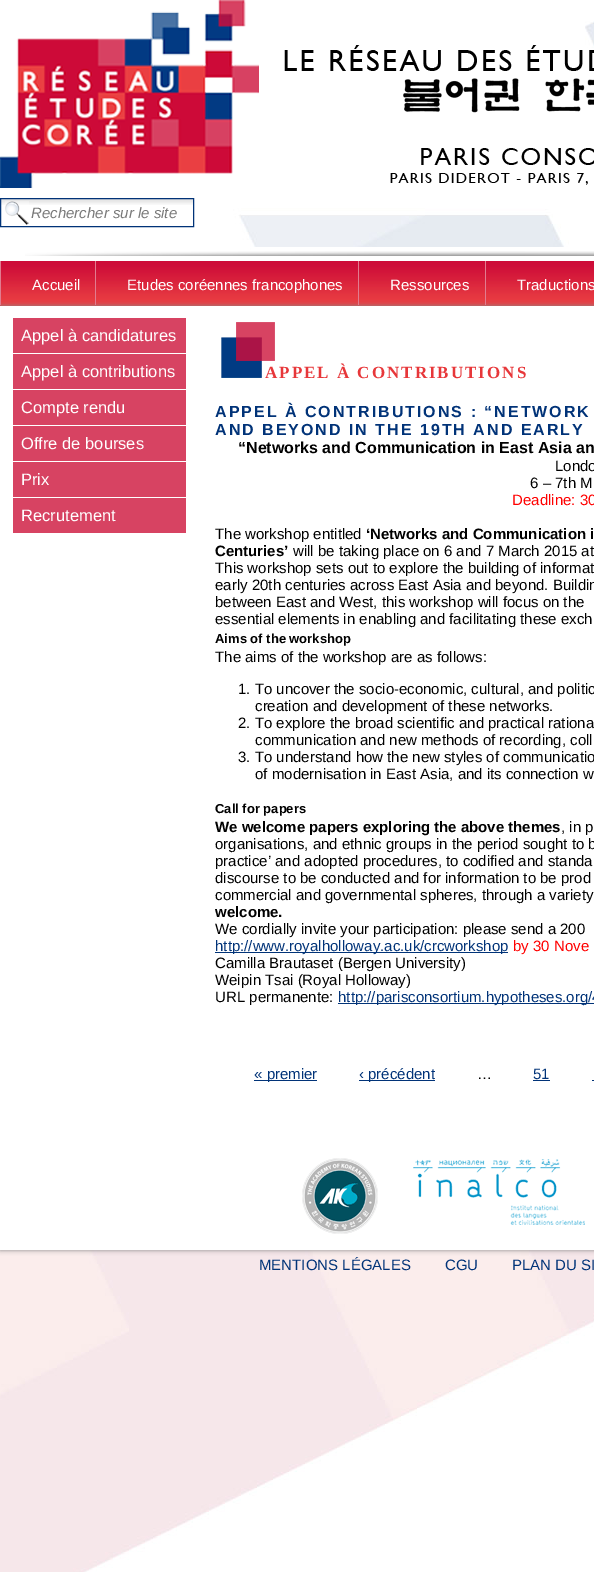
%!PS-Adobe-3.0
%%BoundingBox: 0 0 594 1572
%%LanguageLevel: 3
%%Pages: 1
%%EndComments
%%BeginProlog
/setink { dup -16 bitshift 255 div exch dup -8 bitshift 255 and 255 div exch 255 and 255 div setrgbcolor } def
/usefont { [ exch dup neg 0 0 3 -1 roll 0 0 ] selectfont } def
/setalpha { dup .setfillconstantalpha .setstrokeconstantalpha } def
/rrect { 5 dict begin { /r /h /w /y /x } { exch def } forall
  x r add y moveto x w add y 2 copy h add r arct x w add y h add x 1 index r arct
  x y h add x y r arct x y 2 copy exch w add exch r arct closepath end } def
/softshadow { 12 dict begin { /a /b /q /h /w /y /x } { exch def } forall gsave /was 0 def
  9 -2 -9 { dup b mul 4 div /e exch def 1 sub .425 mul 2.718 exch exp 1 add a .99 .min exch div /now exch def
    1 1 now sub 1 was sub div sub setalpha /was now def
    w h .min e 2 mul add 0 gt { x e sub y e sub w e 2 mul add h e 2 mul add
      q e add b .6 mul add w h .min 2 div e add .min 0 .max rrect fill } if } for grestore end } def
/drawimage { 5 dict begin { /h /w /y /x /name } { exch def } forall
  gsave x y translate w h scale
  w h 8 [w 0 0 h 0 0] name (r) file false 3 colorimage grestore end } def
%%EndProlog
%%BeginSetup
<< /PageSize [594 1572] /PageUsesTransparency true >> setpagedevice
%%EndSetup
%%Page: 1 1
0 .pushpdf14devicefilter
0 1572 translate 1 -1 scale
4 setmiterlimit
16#FFFFFF setink
0 0 594 1572 rectfill
(img1.raw) 0 21 594 1551 drawimage
(img2.raw) 0 0 259 188 drawimage
(img3.raw) 284 45 310 140 drawimage
(img5.raw) 1 199 192 6 drawimage
16#013378 setink
0.5 198.5 193 28 rectstroke
(img4.raw) 5 201 24 24 drawimage
/LiberationSans-Italic 15 usefont
16#797979 setink
31 218 moveto (Rechercher sur le site) show
16#FFFFFF setink
251 247 326 14 rectfill
(img6.raw) 25 251 569 5 drawimage
(img7.raw) 0 261 594 45 drawimage
16#888888 setink
0 306 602 944 0 2.5 1 softshadow
16#E17C90 setink
0 261 1 44 rectfill
/LiberationSans-Regular 15 usefont
16#FFFFFF setink
32 290 moveto (Accueil) show
16#E17C90 setink
95 261 1 44 rectfill
16#FFFFFF setink
127 290 moveto (Etudes coréennes francophones) show
16#E17C90 setink
358 261 1 44 rectfill
16#FFFFFF setink
390 290 moveto (Ressources) show
16#E17C90 setink
485 261 1 44 rectfill
16#FFFFFF setink
517 290 moveto (Traductions) show
0 306 594 944 rectfill
16#D74362 setink
13 318 173 35 rectfill
/LiberationSans-Regular 16.5 usefont
16#FFFFFF setink
21 341 moveto (Appel à candidatures) show
16#D74362 setink
13 354 173 35 rectfill
16#FFFFFF setink
21 377 moveto (Appel à contributions) show
16#D74362 setink
13 390 173 35 rectfill
16#FFFFFF setink
21 413 moveto (Compte rendu) show
16#D74362 setink
13 426 173 35 rectfill
16#FFFFFF setink
21 449 moveto (Offre de bourses) show
16#D74362 setink
13 462 173 35 rectfill
16#FFFFFF setink
21 485 moveto (Prix) show
16#D74362 setink
13 498 173 35 rectfill
16#FFFFFF setink
21 521 moveto (Recrutement) show
(img8.raw) 221 322 54 56 drawimage
/LiberationSerif-Bold 17 usefont
16#E7373A setink
265 378 moveto 2 0 (APPEL À CONTRIBUTIONS) ashow
/LiberationSans-Bold 16 usefont
16#013378 setink
215 417 moveto 2 0 (APPEL À CONTRIBUTIONS : “NETWORK) ashow
215 435 moveto 2 0 (AND BEYOND IN THE 19TH AND EARLY) ashow
16#000000 setink
238 453 moveto (“Networks and Communication in East Asia an) show
/LiberationSans-Regular 15 usefont
555 471 moveto (Londo) show
530 488 moveto (6 – 7th M) show
16#FF0000 setink
512 505 moveto (Deadline: 30) show
16#000000 setink
215 539 moveto (The workshop entitled) show
/LiberationSans-Bold 15 usefont
366 539 moveto (‘Networks and Communication i) show
215 556 moveto (Centuries’) show
/LiberationSans-Regular 15 usefont
[
    [(will be taking place on 6 and 7 March 2015 at) 293 556]
    [(This workshop sets out to explore the building of informat) 215 573]
    [(early 20th centuries across East Asia and beyond. Buildin) 215 590]
    [(between East and West, this workshop will focus on the) 215 607]
    [(essential elements in enabling and facilitating these exch) 215 624]
] { aload pop moveto show } forall
/LiberationSans-Bold 13 usefont
215 643 moveto (Aims of the workshop) show
/LiberationSans-Regular 15 usefont
[
    [(The aims of the workshop are as follows:) 215 662]
    [(1. To uncover the socio-economic, cultural, and politic) 238 694]
    [(creation and development of these networks.) 255 711]
    [(2. To explore the broad scientific and practical rationa) 238 728]
    [(communication and new methods of recording, coll) 255 745]
    [(3. To understand how the new styles of communicatio) 238 762]
    [(of modernisation in East Asia, and its connection w) 255 779]
] { aload pop moveto show } forall
/LiberationSans-Bold 13 usefont
215 813 moveto (Call for papers) show
/LiberationSans-Bold 15 usefont
215 832 moveto (We welcome papers exploring the above themes) show
/LiberationSans-Regular 15 usefont
[
    [(, in p) 561 832]
    [(organisations, and ethnic groups in the period sought to b) 215 849]
    [(practice’ and adopted procedures, to codified and standa) 215 866]
    [(discourse to be conducted and for information to be prod) 215 883]
    [(commercial and governmental spheres, through a variety) 215 900]
] { aload pop moveto show } forall
/LiberationSans-Bold 15 usefont
215 917 moveto (welcome.) show
/LiberationSans-Regular 15 usefont
215 934 moveto (We cordially invite your participation: please send a 200) show
16#013378 setink
215 952 293 1 rectfill
215 951 moveto (http://www.royalholloway.ac.uk/crcworkshop) show
16#FF0000 setink
513 951 moveto (by 30 Nove) show
16#000000 setink
[
    [(Camilla Brautaset \(Bergen University\)) 215 968]
    [(Weipin Tsai \(Royal Holloway\)) 215 985]
    [(URL permanente:) 215 1002]
] { aload pop moveto show } forall
16#013378 setink
338 1003 256 1 rectfill
338 1002 moveto (http://parisconsortium.hypotheses.org/4) show
254 1080 63 1 rectfill
254 1079 moveto (« premier) show
359 1080 76 1 rectfill
359 1079 moveto (‹ précédent) show
16#000000 setink
477 1079 moveto (…) show
16#013378 setink
533 1079 moveto (51) show
533 1080 17 1 rectfill
592 1080 2 1 rectfill
(img9.raw) 302 1158 76 76 drawimage
(img10.raw) 413 1159 172 66 drawimage
[
    [(MENTIONS LÉGALES) 259 1270]
    [(CGU) 445 1270]
    [(PLAN DU SI) 512 1270]
] { aload pop moveto show } forall
.poppdf14devicefilter showpage
%%EOF
